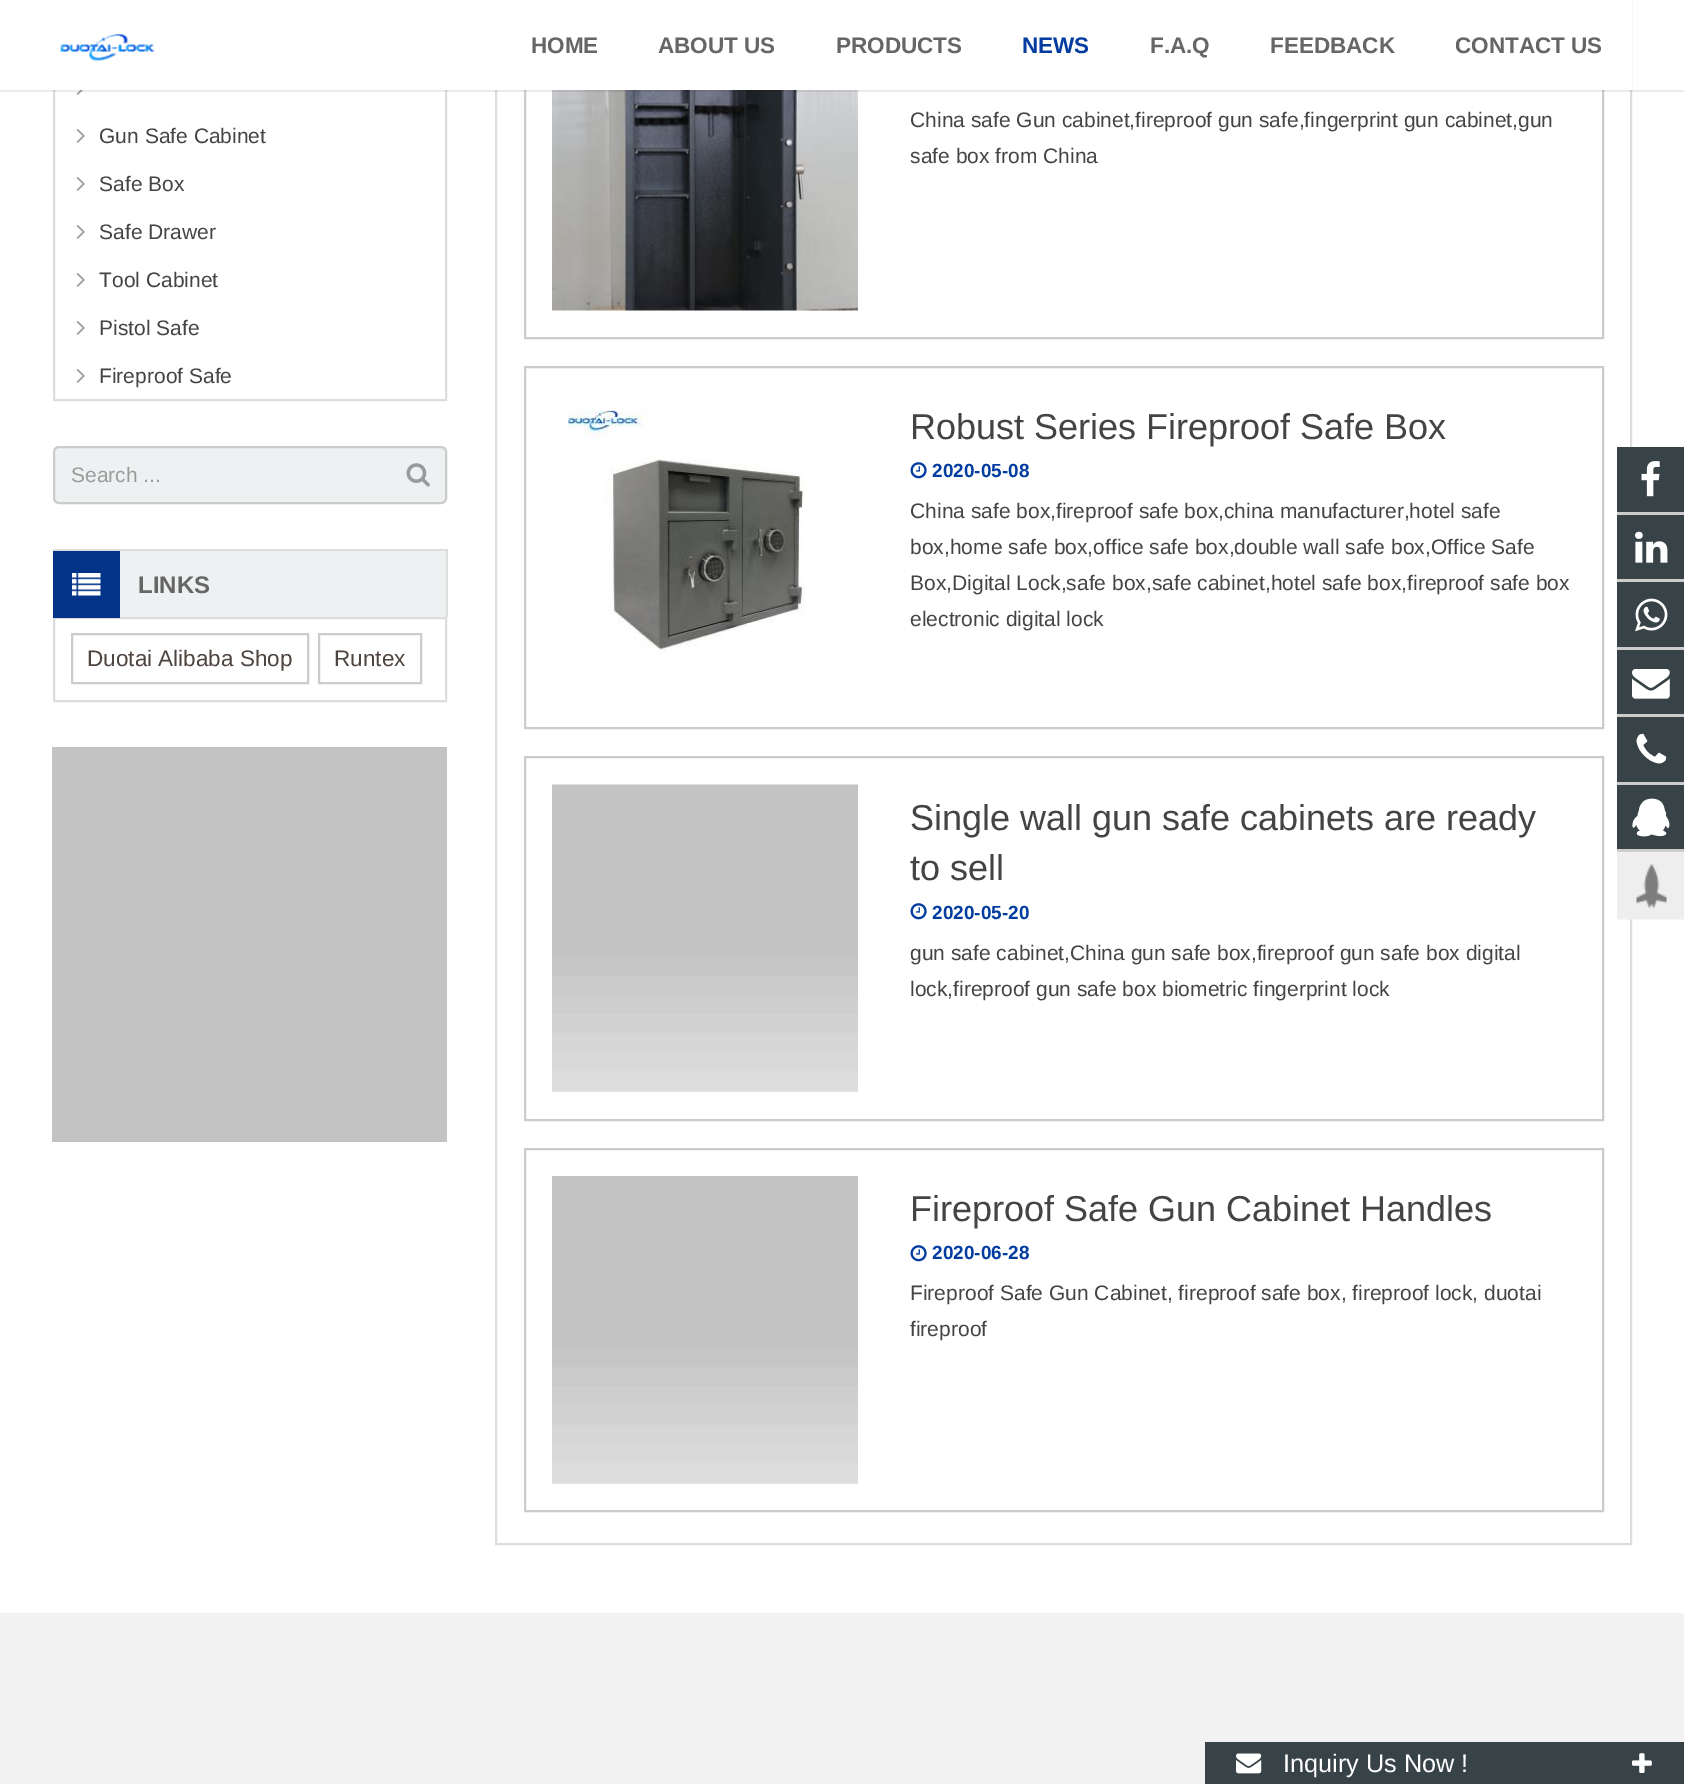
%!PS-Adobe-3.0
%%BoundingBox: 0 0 1684 1784
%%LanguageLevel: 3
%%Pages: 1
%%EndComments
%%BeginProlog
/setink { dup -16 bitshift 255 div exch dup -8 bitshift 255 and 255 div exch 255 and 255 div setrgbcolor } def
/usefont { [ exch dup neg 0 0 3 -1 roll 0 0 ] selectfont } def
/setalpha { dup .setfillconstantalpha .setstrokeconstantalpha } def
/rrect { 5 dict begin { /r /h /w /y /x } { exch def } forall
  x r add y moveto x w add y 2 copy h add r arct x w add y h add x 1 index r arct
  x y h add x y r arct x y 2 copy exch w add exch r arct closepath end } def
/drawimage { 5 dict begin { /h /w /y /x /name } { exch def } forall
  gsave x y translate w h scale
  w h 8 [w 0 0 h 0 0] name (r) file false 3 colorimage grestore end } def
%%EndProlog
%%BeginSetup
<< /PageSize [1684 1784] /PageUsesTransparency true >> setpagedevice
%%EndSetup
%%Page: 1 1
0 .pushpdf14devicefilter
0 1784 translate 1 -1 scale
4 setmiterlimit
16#FFFFFF setink
0 0 1684 1784 rectfill
16#DDDDDD setink
2 setlinewidth
54 15 392 385 rectstroke
(img2.raw) 76 90 7 5 drawimage
496 -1 1135 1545 rectstroke
16#CCCCCC setink
525 -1 1078 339 rectstroke
(img6.raw) 552 90 306 221 drawimage
0.08 setalpha
16#000000 setink
0 90 moveto 0 92 lineto 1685 92 lineto 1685 2 lineto 1684 2 lineto 1684 90 lineto closepath fill
1 setalpha
16#FFFFFF setink
53 0 1579 90 rectfill
(img1.raw) 60 33 95 29 drawimage
/LiberationSans-Bold 22.5 usefont
16#666666 setink
[
    [(HOME) 531 53]
    [(ABOUT US) 658 53]
    [(PRODUCTS) 836 53]
] { aload pop moveto show } forall
16#023CA0 setink
1022 53 moveto (NEWS) show
16#666666 setink
[
    [(F.A.Q) 1150 53]
    [(FEEDBACK) 1270 53]
    [(CONTACT US) 1455 53]
] { aload pop moveto show } forall
(img3.raw) 76 129 9 14 drawimage
/LiberationSans-Regular 21 usefont
16#444444 setink
99 143 moveto (Gun Safe Cabinet) show
(img3.raw) 76 177 9 14 drawimage
99 191 moveto (Safe Box) show
(img3.raw) 76 225 9 14 drawimage
99 239 moveto (Safe Drawer) show
(img3.raw) 76 273 9 14 drawimage
99 287 moveto (Tool Cabinet) show
(img3.raw) 76 321 9 14 drawimage
99 335 moveto (Pistol Safe) show
(img3.raw) 76 369 9 14 drawimage
99 383 moveto (Fireproof Safe) show
16#EDF1F2 setink
54 447 392 56 5 rrect gsave fill grestore
16#CCCCCC setink
stroke
16#999B9B setink
71 482 moveto (Search ...) show
(img4.raw) 406 463 24 24 drawimage
[
    [120 551 326 66 16#EDF1F2]
    [53 549 394 2 16#DDDDDD]
    [446 549 2 68 16#DDDDDD]
] { aload pop setink rectfill } forall
54 618 392 83 rectstroke
16#013388 setink
53 551 67 67 rectfill
(img5.raw) 72 573 29 23 drawimage
/LiberationSans-Bold 24 usefont
16#666666 setink
138 593 moveto (LINKS) show
16#CCCCCC setink
72 634 236 49 rectstroke
/LiberationSans-Regular 22.5 usefont
16#4E4540 setink
87 666 moveto (Duotai Alibaba Shop) show
16#CCCCCC setink
319 634 102 49 rectstroke
16#4E4540 setink
334 666 moveto (Runtex) show
16#C3C3C3 setink
52 747 395 395 rectfill
/LiberationSans-Regular 21 usefont
16#444444 setink
910 127 moveto (China safe Gun cabinet,fireproof gun safe,fingerprint gun cabinet,gun) show
910 163 moveto (safe box from China) show
16#CCCCCC setink
525 367 1078 361 rectstroke
(img7.raw) 567 410 238 245 drawimage
/LiberationSans-Regular 36 usefont
16#444444 setink
910 439 moveto (Robust Series Fireproof Safe Box) show
(img8.raw) 910 462 17 17 drawimage
/LiberationSans-Bold 19 usefont
16#023CA0 setink
932 477 moveto (2020-05-08) show
/LiberationSans-Regular 21 usefont
16#444444 setink
[
    [(China safe box,fireproof safe box,china manufacturer,hotel safe) 910 518]
    [(box,home safe box,office safe box,double wall safe box,Office Safe) 910 554]
    [(Box,Digital Lock,safe box,safe cabinet,hotel safe box,fireproof safe box) 910 590]
    [(electronic digital lock) 910 626]
] { aload pop moveto show } forall
16#CCCCCC setink
525 757 1078 363 rectstroke
(img9.raw) 552 784 306 308 drawimage
/LiberationSans-Regular 36 usefont
16#444444 setink
910 830 moveto (Single wall gun safe cabinets are ready) show
910 880 moveto (to sell) show
(img8.raw) 910 903 17 17 drawimage
/LiberationSans-Bold 19 usefont
16#023CA0 setink
932 919 moveto (2020-05-20) show
/LiberationSans-Regular 21 usefont
16#444444 setink
910 960 moveto (gun safe cabinet,China gun safe box,fireproof gun safe box digital) show
910 996 moveto (lock,fireproof gun safe box biometric fingerprint lock) show
16#CCCCCC setink
525 1149 1078 362 rectstroke
(img10.raw) 552 1176 306 308 drawimage
/LiberationSans-Regular 36 usefont
16#444444 setink
910 1221 moveto (Fireproof Safe Gun Cabinet Handles) show
(img8.raw) 910 1245 17 17 drawimage
/LiberationSans-Bold 19 usefont
16#023CA0 setink
932 1259 moveto (2020-06-28) show
/LiberationSans-Regular 21 usefont
16#444444 setink
910 1300 moveto (Fireproof Safe Gun Cabinet, fireproof safe box, fireproof lock, duotai) show
910 1336 moveto (fireproof) show
16#384347 setink
1617 447 67 402 rectfill
16#CCCCCC setink
1617 512 67 3 rectfill
(img11.raw) 1641 461 19 36 drawimage
1617 579 67 3 rectfill
(img12.raw) 1635 531 33 32 drawimage
1617 647 67 3 rectfill
(img13.raw) 1635 598 33 34 drawimage
1617 714 67 3 rectfill
(img14.raw) 1632 669 38 30 drawimage
1617 782 67 3 rectfill
(img15.raw) 1636 733 31 31 drawimage
1617 849 67 3 rectfill
(img16.raw) 1632 798 38 39 drawimage
(img17.raw) 1617 852 67 68 drawimage
16#F2F2F2 setink
0 1613 1684 171 rectfill
16#384347 setink
1205 1742 479 42 rectfill
(img18.raw) 1236 1753 26 21 drawimage
/LiberationSans-Regular 25.25 usefont
16#FFFFFF setink
1283 1772 moveto (Inquiry Us Now !) show
(img19.raw) 1632 1753 20 20 drawimage
.poppdf14devicefilter showpage
%%EOF
